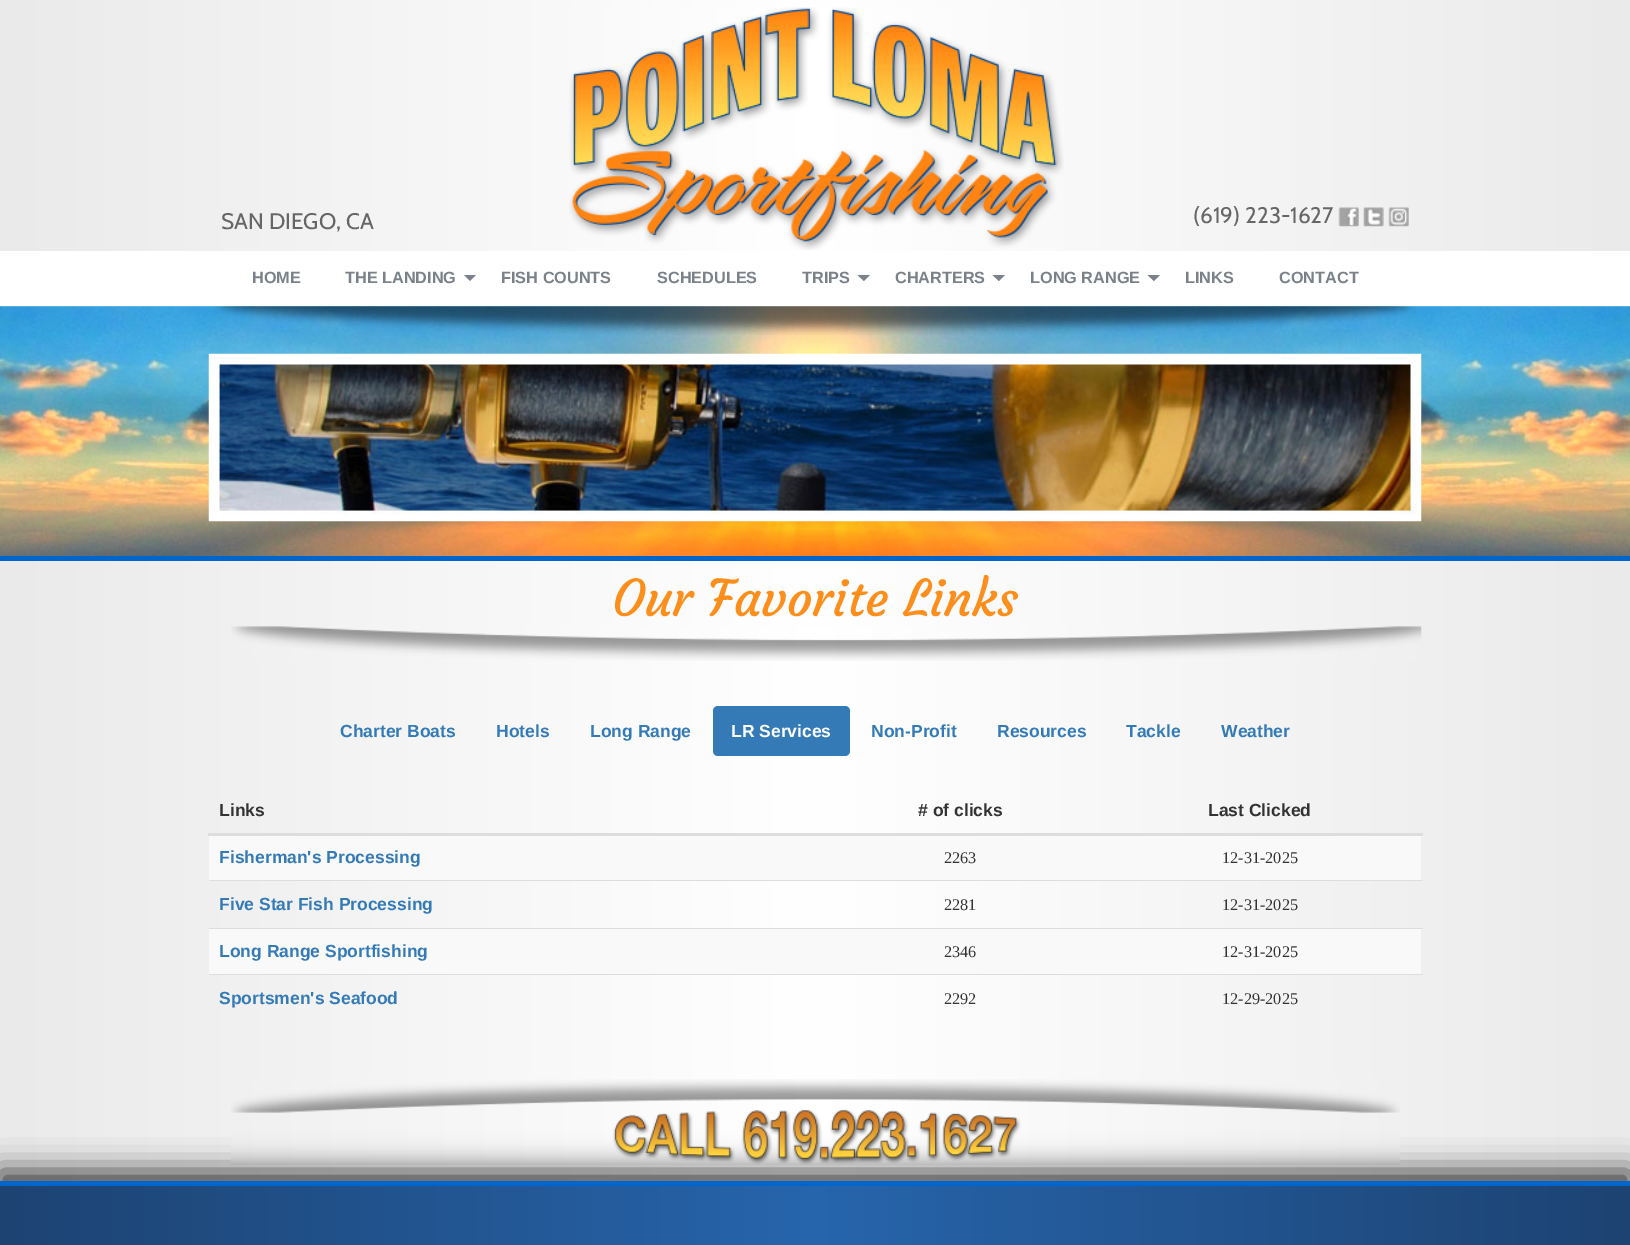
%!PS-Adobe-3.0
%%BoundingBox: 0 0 1630 1245
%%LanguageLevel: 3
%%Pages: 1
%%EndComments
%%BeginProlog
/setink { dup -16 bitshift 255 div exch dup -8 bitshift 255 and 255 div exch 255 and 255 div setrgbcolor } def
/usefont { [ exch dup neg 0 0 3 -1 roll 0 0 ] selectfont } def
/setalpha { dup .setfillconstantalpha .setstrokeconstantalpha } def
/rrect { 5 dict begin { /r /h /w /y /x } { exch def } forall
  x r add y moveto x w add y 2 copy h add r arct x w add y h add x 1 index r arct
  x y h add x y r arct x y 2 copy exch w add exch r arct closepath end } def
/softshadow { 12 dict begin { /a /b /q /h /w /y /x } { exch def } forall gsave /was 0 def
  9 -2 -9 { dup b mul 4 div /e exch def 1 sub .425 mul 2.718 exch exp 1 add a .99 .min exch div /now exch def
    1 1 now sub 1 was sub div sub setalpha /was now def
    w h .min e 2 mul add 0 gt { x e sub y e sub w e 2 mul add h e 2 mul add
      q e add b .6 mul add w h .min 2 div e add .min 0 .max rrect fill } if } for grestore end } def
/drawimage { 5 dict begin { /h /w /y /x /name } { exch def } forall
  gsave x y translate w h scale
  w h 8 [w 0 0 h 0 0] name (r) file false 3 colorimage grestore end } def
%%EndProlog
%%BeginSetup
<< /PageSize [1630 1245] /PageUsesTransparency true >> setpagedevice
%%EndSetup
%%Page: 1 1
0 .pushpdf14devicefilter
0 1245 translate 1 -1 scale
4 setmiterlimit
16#FFFFFF setink
0 0 1630 1245 rectfill
gsave 0 0 moveto 1630 0 lineto 1630 1046 lineto 0 1046 lineto closepath clip newpath
<< /ShadingType 2 /ColorSpace /DeviceRGB /Coords [0 523 1630 523] /Extend [true true] /Function << /FunctionType 3 /Domain [0 1] /Functions [<< /FunctionType 2 /Domain [0 1] /C0 [0.918 0.918 0.918] /C1 [1 1 1] /N 1 >> << /FunctionType 2 /Domain [0 1] /C0 [1 1 1] /C1 [0.918 0.918 0.918] /N 1 >>] /Bounds [0.5] /Encode [0 1 0 1] >> >> shfill grestore
/Cabin-Regular 22.5 usefont
16#666666 setink
221 229 moveto (SAN DIEGO, CA) show
(img1.raw) 569 7 495 243 drawimage
1193 223 moveto (\(619\) 223-1627) show
(img2.raw) 1338 207 21 20 drawimage
(img3.raw) 1363 207 21 20 drawimage
(img4.raw) 1388 207 21 20 drawimage
16#FFFFFF setink
0 251 1630 55 rectfill
/LiberationSans-Bold 16.25 usefont
16#7A8189 setink
252 283 moveto (HOME) show
345 283 moveto (THE LANDING) show
464 275 moveto 476 275 lineto 470 281 lineto closepath fill
[
    [(FISH COUNTS) 501 283]
    [(SCHEDULES) 657 283]
    [(TRIPS) 802 283]
] { aload pop moveto show } forall
857.5 275 moveto 870 275 lineto 864 281 lineto closepath fill
895 283 moveto (CHARTERS) show
992.5 275 moveto 1005 275 lineto 999 281 lineto closepath fill
1030 283 moveto (LONG RANGE) show
1147.5 275 moveto 1160 275 lineto 1154 281 lineto closepath fill
1185 283 moveto (LINKS) show
1279 283 moveto (CONTACT) show
(img5.raw) 0 306 1630 250 drawimage
(img6.raw) 215 306 1201 29 drawimage
(img7.raw) 208 353 1214 169 drawimage
16#0066CC setink
0 556 1630 5 rectfill
(img8.raw) 231 626 1191 35 drawimage
/Courgette-Regular 50 usefont
16#FC8E1B setink
612 616 moveto (Our Favorite Links) show
/LiberationSans-Bold 17.5 usefont
16#337AB7 setink
[
    [(Charter Boats) 340 737]
    [(Hotels) 496 737]
    [(Long Range) 590 737]
] { aload pop moveto show } forall
713 706 137 50 5 rrect fill
16#FFFFFF setink
731 737 moveto (LR Services) show
16#337AB7 setink
[
    [(Non-Profit) 871 737]
    [(Resources) 997 737]
    [(Tackle) 1126 737]
    [(Weather) 1221 737]
] { aload pop moveto show } forall
16#333333 setink
219 816 moveto (Links) show
918 816 moveto (# of clicks) show
16#DDDDDD setink
208 833 1215 3 rectfill
16#333333 setink
1208 816 moveto (Last Clicked) show
16#F9F9F9 setink
209 836 1212 44 rectfill
16#337AB7 setink
219 863 moveto (Fisherman's Processing) show
/LiberationSerif-Regular 16.25 usefont
16#333333 setink
944 863 moveto (2263) show
1222 863 moveto (12-31-2025) show
/LiberationSans-Bold 17.5 usefont
16#337AB7 setink
219 910 moveto (Five Star Fish Processing) show
/LiberationSerif-Regular 16.25 usefont
16#333333 setink
944 910 moveto (2281) show
16#DDDDDD setink
209 880 1214 1 rectfill
16#333333 setink
1222 910 moveto (12-31-2025) show
16#F9F9F9 setink
209 929 1212 45 rectfill
/LiberationSans-Bold 17.5 usefont
16#337AB7 setink
219 957 moveto (Long Range Sportfishing) show
/LiberationSerif-Regular 16.25 usefont
16#333333 setink
944 957 moveto (2346) show
16#DDDDDD setink
209 928 1214 1 rectfill
16#333333 setink
1222 957 moveto (12-31-2025) show
/LiberationSans-Bold 17.5 usefont
16#337AB7 setink
219 1004 moveto (Sportsmen's Seafood) show
/LiberationSerif-Regular 16.25 usefont
16#333333 setink
944 1004 moveto (2292) show
16#DDDDDD setink
209 974 1214 1 rectfill
16#333333 setink
1222 1004 moveto (12-29-2025) show
gsave 0 1046 moveto 1630 1046 lineto 1630 1181 lineto 0 1181 lineto closepath clip newpath
<< /ShadingType 2 /ColorSpace /DeviceRGB /Coords [0 1114 1630 1114] /Extend [true true] /Function << /FunctionType 3 /Domain [0 1] /Functions [<< /FunctionType 2 /Domain [0 1] /C0 [0.918 0.918 0.918] /C1 [1 1 1] /N 1 >> << /FunctionType 2 /Domain [0 1] /C0 [1 1 1] /C1 [0.918 0.918 0.918] /N 1 >>] /Bounds [0.5] /Encode [0 1 0 1] >> >> shfill grestore
16#000000 setink
-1 1171 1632 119 0 15 0.75 softshadow
(img9.raw) 231 1079 1169 86 drawimage
gsave 0 1186 moveto 1630 1186 lineto 1630 1245 lineto 0 1245 lineto closepath clip newpath
<< /ShadingType 2 /ColorSpace /DeviceRGB /Coords [0 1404 1630 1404] /Extend [true true] /Function << /FunctionType 3 /Domain [0 1] /Functions [<< /FunctionType 2 /Domain [0 1] /C0 [0.114 0.263 0.447] /C1 [0.153 0.396 0.675] /N 1 >> << /FunctionType 2 /Domain [0 1] /C0 [0.153 0.396 0.675] /C1 [0.114 0.263 0.447] /N 1 >>] /Bounds [0.5] /Encode [0 1 0 1] >> >> shfill grestore
16#0066CC setink
0 1181 1630 5 rectfill
.poppdf14devicefilter showpage
%%EOF
